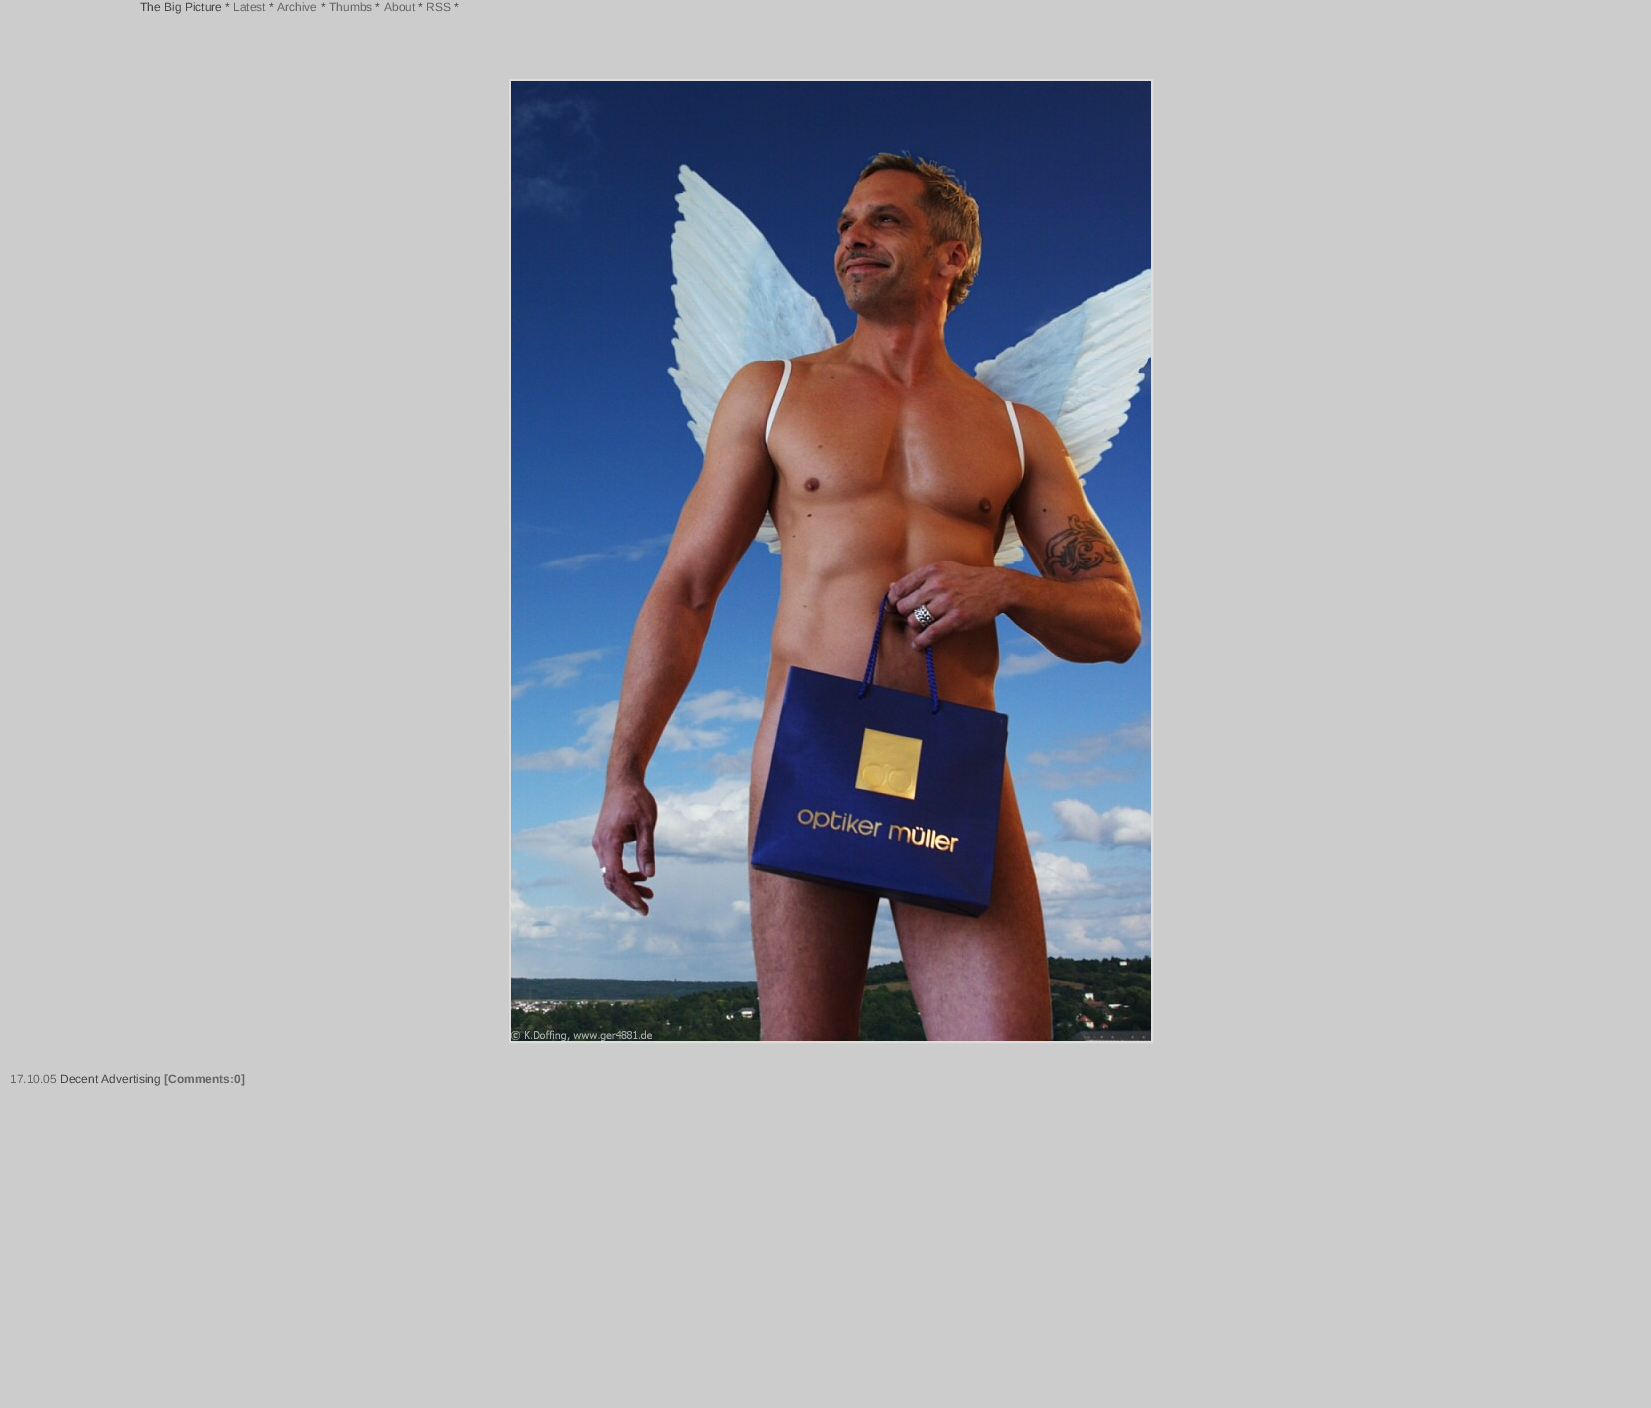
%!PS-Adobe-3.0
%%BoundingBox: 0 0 1651 1408
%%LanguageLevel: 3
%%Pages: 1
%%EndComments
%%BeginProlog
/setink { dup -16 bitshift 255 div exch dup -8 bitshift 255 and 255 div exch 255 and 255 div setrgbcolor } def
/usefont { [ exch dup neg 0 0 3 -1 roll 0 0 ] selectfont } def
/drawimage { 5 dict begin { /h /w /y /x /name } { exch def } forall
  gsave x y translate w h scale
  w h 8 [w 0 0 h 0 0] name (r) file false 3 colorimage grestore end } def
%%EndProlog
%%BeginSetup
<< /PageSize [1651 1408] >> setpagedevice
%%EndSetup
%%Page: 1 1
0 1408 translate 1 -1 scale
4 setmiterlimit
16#CCCCCC setink
0 0 1651 1408 rectfill
/LiberationSans-Regular 12 usefont
16#444444 setink
140 11 moveto (The Big Picture *) show
16#666666 setink
233 11 moveto (Latest) show
16#444444 setink
269 11 moveto (*) show
16#666666 setink
277 11 moveto (Archive) show
16#444444 setink
321 11 moveto (*) show
16#666666 setink
329 11 moveto (Thumbs) show
16#444444 setink
375 11 moveto (*) show
16#666666 setink
384 11 moveto (About) show
16#444444 setink
418 11 moveto (*) show
16#666666 setink
426 11 moveto (RSS) show
16#444444 setink
454 11 moveto (*) show
16#DDDDDD setink
2 setlinewidth
510 80 642 962 rectstroke
(img1.raw) 511 81 640 960 drawimage
16#666666 setink
10 1083 moveto (17.10.05) show
16#444444 setink
60 1083 moveto (Decent Advertising) show
/LiberationSans-Bold 12 usefont
16#666666 setink
164 1083 moveto ([Comments:0]) show
showpage
%%EOF
